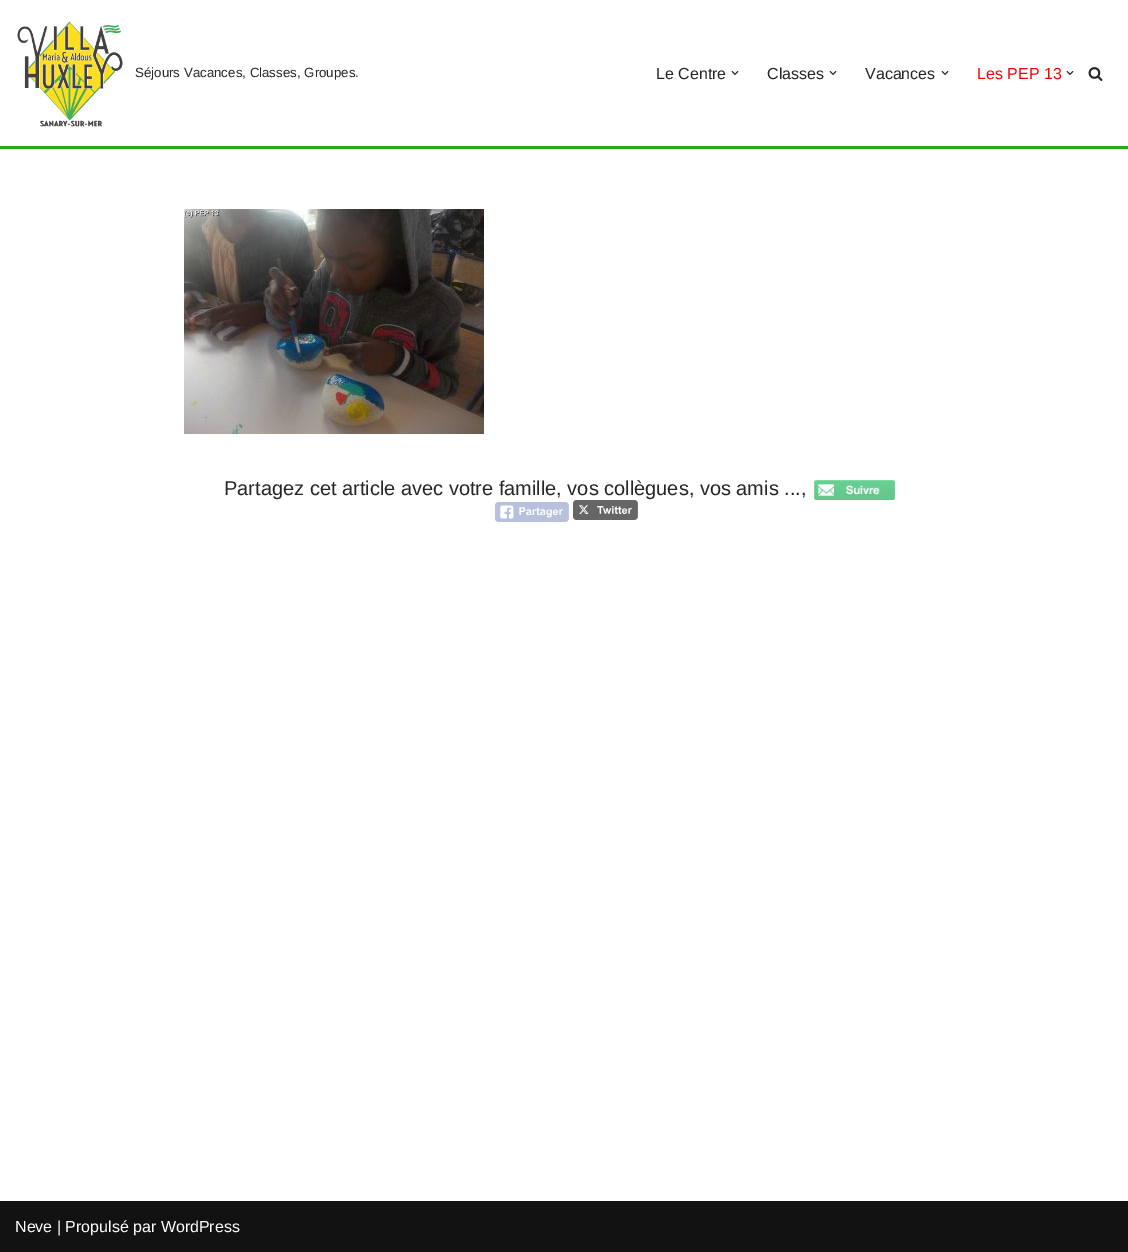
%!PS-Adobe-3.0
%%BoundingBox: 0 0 1128 1252
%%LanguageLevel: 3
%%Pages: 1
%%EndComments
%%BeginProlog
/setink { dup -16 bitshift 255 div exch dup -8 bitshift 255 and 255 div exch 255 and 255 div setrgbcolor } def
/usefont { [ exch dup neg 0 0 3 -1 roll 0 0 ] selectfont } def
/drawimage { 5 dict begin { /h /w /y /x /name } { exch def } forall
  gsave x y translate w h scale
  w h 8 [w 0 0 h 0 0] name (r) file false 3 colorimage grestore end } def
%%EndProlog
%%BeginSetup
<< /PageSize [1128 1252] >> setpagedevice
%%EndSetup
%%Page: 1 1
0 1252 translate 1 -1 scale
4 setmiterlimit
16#FFFFFF setink
0 0 1128 1252 rectfill
16#22AA1B setink
0 146 1128 3 rectfill
(img1.raw) 17 21 106 106 drawimage
/LiberationSans-Regular 13.3 usefont
16#272626 setink
135 77 moveto (Séjours Vacances, Classes, Groupes.) show
/LiberationSans-Regular 16 usefont
656 79 moveto (Le Centre) show
(img2.raw) 731 71 8 4 drawimage
767 79 moveto (Classes) show
(img2.raw) 829 71 8 4 drawimage
865 79 moveto (Vacances) show
(img2.raw) 941 71 8 4 drawimage
16#FF0000 setink
977 79 moveto (Les PEP 13) show
(img2.raw) 1066 71 8 4 drawimage
(img3.raw) 1088 67 15 14 drawimage
(img4.raw) 184 209 300 225 drawimage
/LiberationSans-Regular 20 usefont
16#272626 setink
224 495 moveto (Partagez cet article avec votre famille, vos collègues, vos amis ...,) show
(img5.raw) 814 480 81 20 drawimage
(img6.raw) 495 502 74 20 drawimage
(img7.raw) 573 500 65 20 drawimage
16#121212 setink
0 1201 1128 51 rectfill
/LiberationSans-Regular 16 usefont
16#FFFFFF setink
15 1232 moveto (Neve | Propulsé par WordPress) show
showpage
%%EOF
